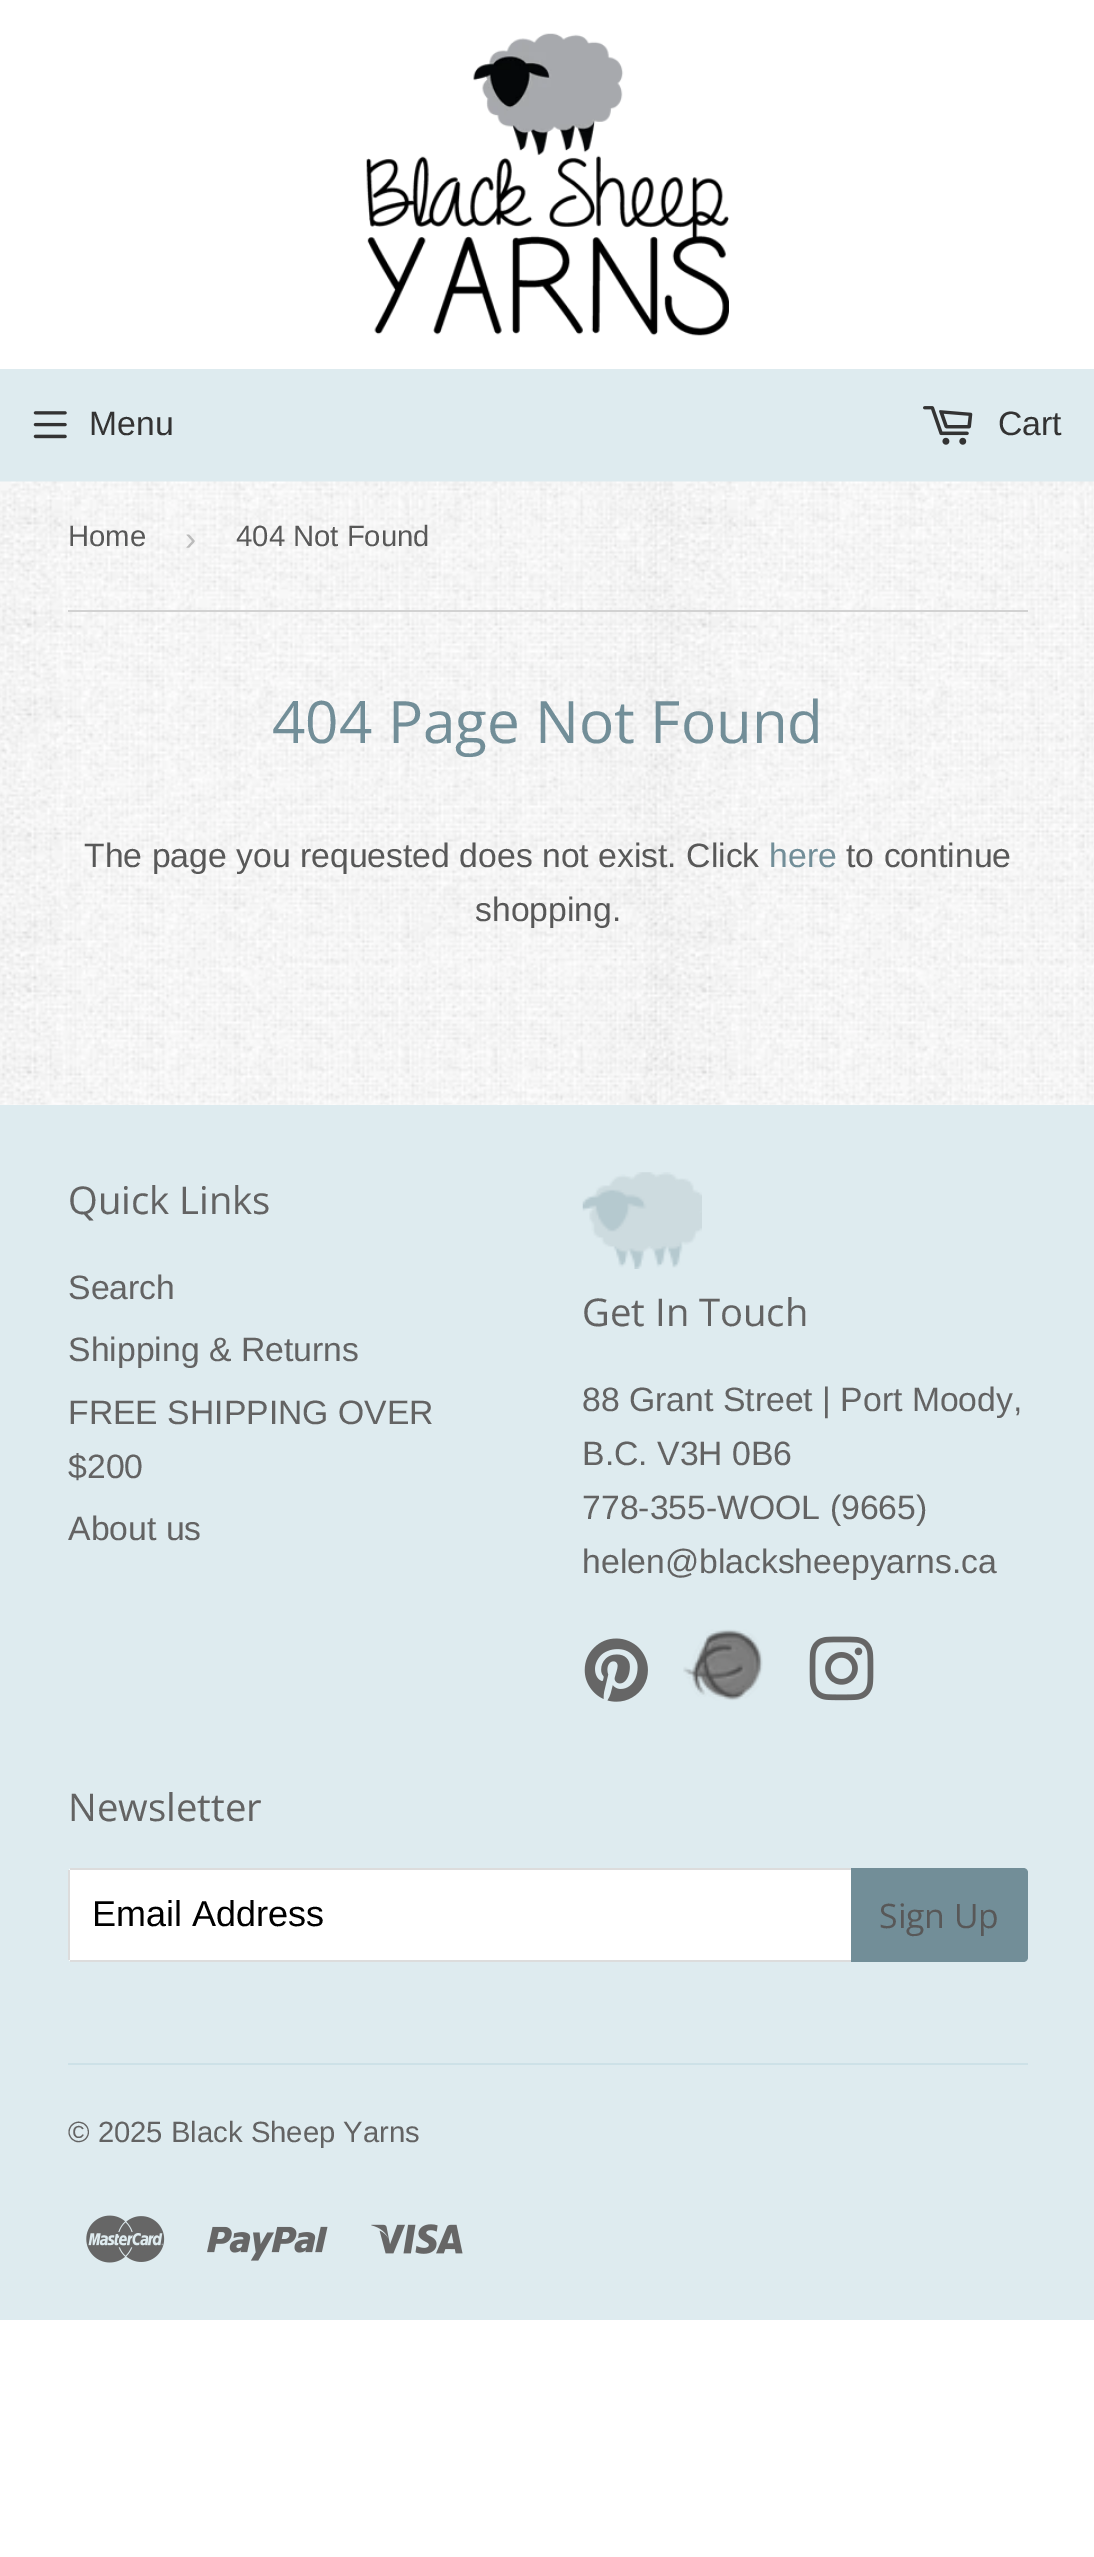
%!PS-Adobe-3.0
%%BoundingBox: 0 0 1094 2557
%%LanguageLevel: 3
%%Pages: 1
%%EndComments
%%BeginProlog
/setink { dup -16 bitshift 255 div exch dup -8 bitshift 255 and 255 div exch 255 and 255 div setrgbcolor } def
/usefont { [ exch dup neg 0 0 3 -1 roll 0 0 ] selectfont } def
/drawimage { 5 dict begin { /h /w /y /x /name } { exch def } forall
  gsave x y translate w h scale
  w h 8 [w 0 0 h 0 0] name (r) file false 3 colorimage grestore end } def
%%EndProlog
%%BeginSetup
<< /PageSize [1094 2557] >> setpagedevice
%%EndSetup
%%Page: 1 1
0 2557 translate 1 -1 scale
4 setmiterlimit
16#FFFFFF setink
0 0 1094 2557 rectfill
(img1.raw) 366 33 363 303 drawimage
16#DEEBEF setink
0 369 1094 113 rectfill
(img2.raw) 33 411 34 28 drawimage
/LiberationSans-Regular 33.75 usefont
16#333333 setink
89 435 moveto (Menu) show
(img3.raw) 923 406 50 39 drawimage
998 435 moveto (Cart) show
(img4.raw) 0 481 1094 624 drawimage
16#D2D2D2 setink
68 610 960 2 rectfill
/LiberationSans-Regular 29.25 usefont
16#585858 setink
68 546 moveto (Home) show
/LiberationSans-Regular 33.75 usefont
16#BBBBBB setink
185 550 moveto (›) show
/LiberationSans-Regular 29.25 usefont
16#585858 setink
236 546 moveto (404 Not Found) show
/OpenSans-Regular 58.5 usefont
16#728E98 setink
272 743 moveto (404 Page Not Found) show
/LiberationSans-Regular 33.75 usefont
16#585858 setink
84 867 moveto (The page you requested does not exist. Click) show
16#728E98 setink
769 867 moveto (here) show
16#585858 setink
846 867 moveto (to continue) show
475 921 moveto (shopping.) show
16#DEEBEF setink
0 1105 1094 1215 rectfill
/OpenSans-Regular 38.25 usefont
16#636363 setink
68 1214 moveto (Quick Links) show
/LiberationSans-Regular 33.75 usefont
[
    [(Search) 68 1299]
    [(Shipping & Returns) 68 1361]
    [(FREE SHIPPING OVER) 68 1424]
    [($200) 68 1478]
    [(About us) 68 1540]
] { aload pop moveto show } forall
(img5.raw) 582 1172 120 97 drawimage
/OpenSans-Regular 38.25 usefont
582 1326 moveto (Get In Touch) show
/LiberationSans-Regular 33.75 usefont
[
    [(88 Grant Street | Port Moody,) 582 1411]
    [(B.C. V3H 0B6) 582 1465]
    [(778-355-WOOL \(9665\)) 582 1519]
    [(helen@blacksheepyarns.ca) 582 1573]
] { aload pop moveto show } forall
(img6.raw) 584 1638 64 64 drawimage
(img7.raw) 683 1629 80 72 drawimage
(img8.raw) 809 1636 65 65 drawimage
/OpenSans-Regular 38.25 usefont
68 1821 moveto (Newsletter) show
16#FFFFFF setink
73 1868 moveto 851 1868 lineto 851 1962 lineto 73 1962 lineto 70 1962 68 1960 68 1957 curveto 68 1873 lineto 68 1870 70 1868 73 1868 curveto closepath fill
[
    [70 1868 781 2 16#DCDCDC]
    [70 1960 781 2 16#DCDCDC]
    [68 1870 2 90 16#DCDCDC]
] { aload pop setink rectfill } forall
/LiberationSans-Regular 36 usefont
16#000000 setink
92 1926 moveto (Email Address) show
16#728E98 setink
851 1868 moveto 1023 1868 lineto 1026 1868 1028 1870 1028 1873 curveto 1028 1957 lineto 1028 1960 1026 1962 1023 1962 curveto 851 1962 lineto closepath fill
/OpenSans-Regular 33.75 usefont
16#585858 setink
879 1928 moveto (Sign Up) show
16#CDE1E7 setink
68 2063 960 2 rectfill
/LiberationSans-Regular 29.25 usefont
16#636363 setink
68 2142 moveto (© 2025 Black Sheep Yarns) show
(img9.raw) 86 2215 79 48 drawimage
(img10.raw) 207 2226 121 35 drawimage
(img11.raw) 371 2224 92 30 drawimage
showpage
%%EOF
